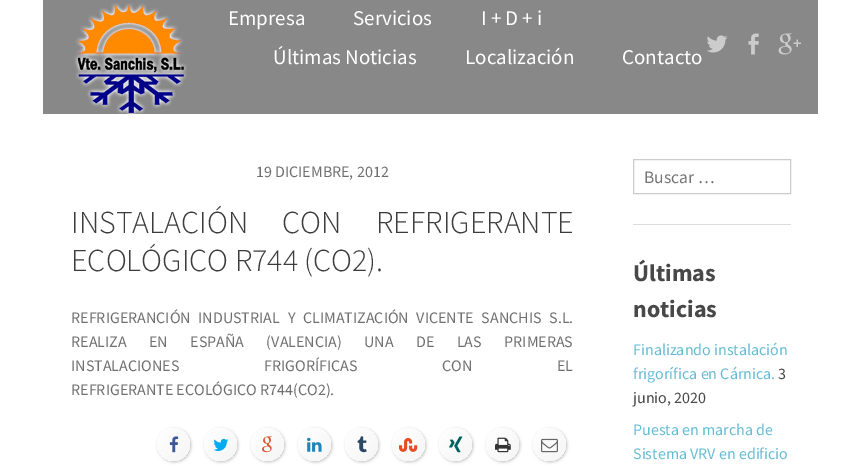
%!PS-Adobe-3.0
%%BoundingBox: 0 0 861 474
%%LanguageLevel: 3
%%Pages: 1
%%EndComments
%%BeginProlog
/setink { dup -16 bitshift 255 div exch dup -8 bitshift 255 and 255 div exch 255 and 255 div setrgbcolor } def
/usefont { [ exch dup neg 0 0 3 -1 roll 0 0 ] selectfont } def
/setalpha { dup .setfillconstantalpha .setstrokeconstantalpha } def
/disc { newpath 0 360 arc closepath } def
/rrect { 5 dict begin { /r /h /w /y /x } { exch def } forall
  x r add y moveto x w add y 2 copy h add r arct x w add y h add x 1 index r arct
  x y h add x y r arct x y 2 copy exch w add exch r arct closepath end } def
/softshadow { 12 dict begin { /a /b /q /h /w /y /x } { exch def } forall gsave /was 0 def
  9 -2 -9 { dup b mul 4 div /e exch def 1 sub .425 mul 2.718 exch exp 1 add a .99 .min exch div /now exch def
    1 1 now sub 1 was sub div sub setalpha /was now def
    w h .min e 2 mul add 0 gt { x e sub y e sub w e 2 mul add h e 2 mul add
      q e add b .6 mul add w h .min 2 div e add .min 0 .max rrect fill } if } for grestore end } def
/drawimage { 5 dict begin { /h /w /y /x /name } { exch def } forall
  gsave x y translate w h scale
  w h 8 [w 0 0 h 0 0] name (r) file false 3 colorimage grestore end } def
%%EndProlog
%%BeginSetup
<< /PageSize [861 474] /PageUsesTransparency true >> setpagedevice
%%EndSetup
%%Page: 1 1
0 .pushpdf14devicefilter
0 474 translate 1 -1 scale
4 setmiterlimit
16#FFFFFF setink
0 0 861 474 rectfill
16#888888 setink
43 0 775 114 rectfill
(img1.raw) 74 3 113 111 drawimage
/SourceSansPro-Regular 21 usefont
16#FFFFFF setink
[
    [(Empresa) 228 25]
    [(Servicios) 353 25]
    [(I + D + i) 481 25]
    [(Últimas Noticias) 273 64]
    [(Localización) 465 64]
    [(Contacto) 622 64]
] { aload pop moveto show } forall
(img2.raw) 706 35 22 18 drawimage
(img3.raw) 748 33 11 22 drawimage
(img4.raw) 778 33 23 22 drawimage
/SourceSansPro-Regular 16 usefont
16#6F6F6F setink
256 177 moveto (19 DICIEMBRE, 2012) show
/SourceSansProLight-Light 32 usefont
16#3D3C3C setink
71 233 moveto 28 0 32 (INSTALACIÓN CON REFRIGERANTE) widthshow
71 271 moveto (ECOLÓGICO R744 \(CO2\).) show
/SourceSansPro-Regular 16 usefont
16#6F6F6F setink
71 323 moveto 4.5 0 32 (REFRIGERANCIÓN INDUSTRIAL Y CLIMATIZACIÓN VICENTE SANCHIS S.L.) widthshow
71 347 moveto 19.25 0 32 (REALIZA EN ESPAÑA \(VALENCIA\) UNA DE LAS PRIMERAS) widthshow
71 371 moveto 81.5 0 32 (INSTALACIONES FRIGORÍFICAS CON EL) widthshow
71 395 moveto (REFRIGERANTE ECOLÓGICO R744\(CO2\).) show
16#000000 setink
158 429 33 33 16.5 1.5 0.24 softshadow
gsave 173.5 444.5 16.5 disc clip newpath
<< /ShadingType 2 /ColorSpace /DeviceRGB /Coords [157 428 190 461] /Extend [true true] /Function << /FunctionType 2 /Domain [0 1] /C0 [1 1 1] /C1 [0.961 0.961 0.961] /N 1 >> >> shfill grestore
(img5.raw) 169 436 10 17 drawimage
205 429 33 33 16.5 1.5 0.24 softshadow
gsave 220.5 444.5 16.5 disc clip newpath
<< /ShadingType 2 /ColorSpace /DeviceRGB /Coords [204 428 237 461] /Extend [true true] /Function << /FunctionType 2 /Domain [0 1] /C0 [1 1 1] /C1 [0.961 0.961 0.961] /N 1 >> >> shfill grestore
(img6.raw) 213 438 16 13 drawimage
252 429 33 33 16.5 1.5 0.24 softshadow
gsave 267.5 444.5 16.5 disc clip newpath
<< /ShadingType 2 /ColorSpace /DeviceRGB /Coords [251 428 284 461] /Extend [true true] /Function << /FunctionType 2 /Domain [0 1] /C0 [1 1 1] /C1 [0.961 0.961 0.961] /N 1 >> >> shfill grestore
(img7.raw) 262 436 10 17 drawimage
299 429 33 33 16.5 1.5 0.24 softshadow
gsave 314.5 444.5 16.5 disc clip newpath
<< /ShadingType 2 /ColorSpace /DeviceRGB /Coords [298 428 331 461] /Extend [true true] /Function << /FunctionType 2 /Domain [0 1] /C0 [1 1 1] /C1 [0.961 0.961 0.961] /N 1 >> >> shfill grestore
(img8.raw) 307 437 15 15 drawimage
346 429 33 33 16.5 1.5 0.24 softshadow
gsave 361.5 444.5 16.5 disc clip newpath
<< /ShadingType 2 /ColorSpace /DeviceRGB /Coords [345 428 378 461] /Extend [true true] /Function << /FunctionType 2 /Domain [0 1] /C0 [1 1 1] /C1 [0.961 0.961 0.961] /N 1 >> >> shfill grestore
(img9.raw) 357 436 10 17 drawimage
393 429 33 33 16.5 1.5 0.24 softshadow
gsave 408.5 444.5 16.5 disc clip newpath
<< /ShadingType 2 /ColorSpace /DeviceRGB /Coords [392 428 425 461] /Extend [true true] /Function << /FunctionType 2 /Domain [0 1] /C0 [1 1 1] /C1 [0.961 0.961 0.961] /N 1 >> >> shfill grestore
(img10.raw) 399 438 19 14 drawimage
440 429 33 33 16.5 1.5 0.24 softshadow
gsave 455.5 444.5 16.5 disc clip newpath
<< /ShadingType 2 /ColorSpace /DeviceRGB /Coords [439 428 472 461] /Extend [true true] /Function << /FunctionType 2 /Domain [0 1] /C0 [1 1 1] /C1 [0.961 0.961 0.961] /N 1 >> >> shfill grestore
(img11.raw) 449 436 14 17 drawimage
487 429 33 33 16.5 1.5 0.24 softshadow
gsave 502.5 444.5 16.5 disc clip newpath
<< /ShadingType 2 /ColorSpace /DeviceRGB /Coords [486 428 519 461] /Extend [true true] /Function << /FunctionType 2 /Domain [0 1] /C0 [1 1 1] /C1 [0.961 0.961 0.961] /N 1 >> >> shfill grestore
(img12.raw) 495 437 16 16 drawimage
534 429 33 33 16.5 1.5 0.24 softshadow
gsave 549.5 444.5 16.5 disc clip newpath
<< /ShadingType 2 /ColorSpace /DeviceRGB /Coords [533 428 566 461] /Extend [true true] /Function << /FunctionType 2 /Domain [0 1] /C0 [1 1 1] /C1 [0.961 0.961 0.961] /N 1 >> >> shfill grestore
(img13.raw) 541 438 17 15 drawimage
16#DDDDDD setink
633 224 158 1 rectfill
16#CCCCCC setink
633.5 159.5 157 34 rectstroke
/SourceSansPro-Regular 17.5 usefont
16#757575 setink
644 183 moveto (Buscar …) show
/SourceSansPro-Bold 24 usefont
16#484848 setink
633 281 moveto (Últimas) show
633 317 moveto (noticias) show
/SourceSansPro-Regular 16 usefont
16#66BBD3 setink
633 355 moveto (Finalizando instalación) show
633 379 moveto (frigorífica en Cárnica.) show
16#484848 setink
778 379 moveto (3) show
633 403 moveto (junio, 2020) show
16#66BBD3 setink
633 435 moveto (Puesta en marcha de) show
633 459 moveto (Sistema VRV en edificio) show
.poppdf14devicefilter showpage
%%EOF
